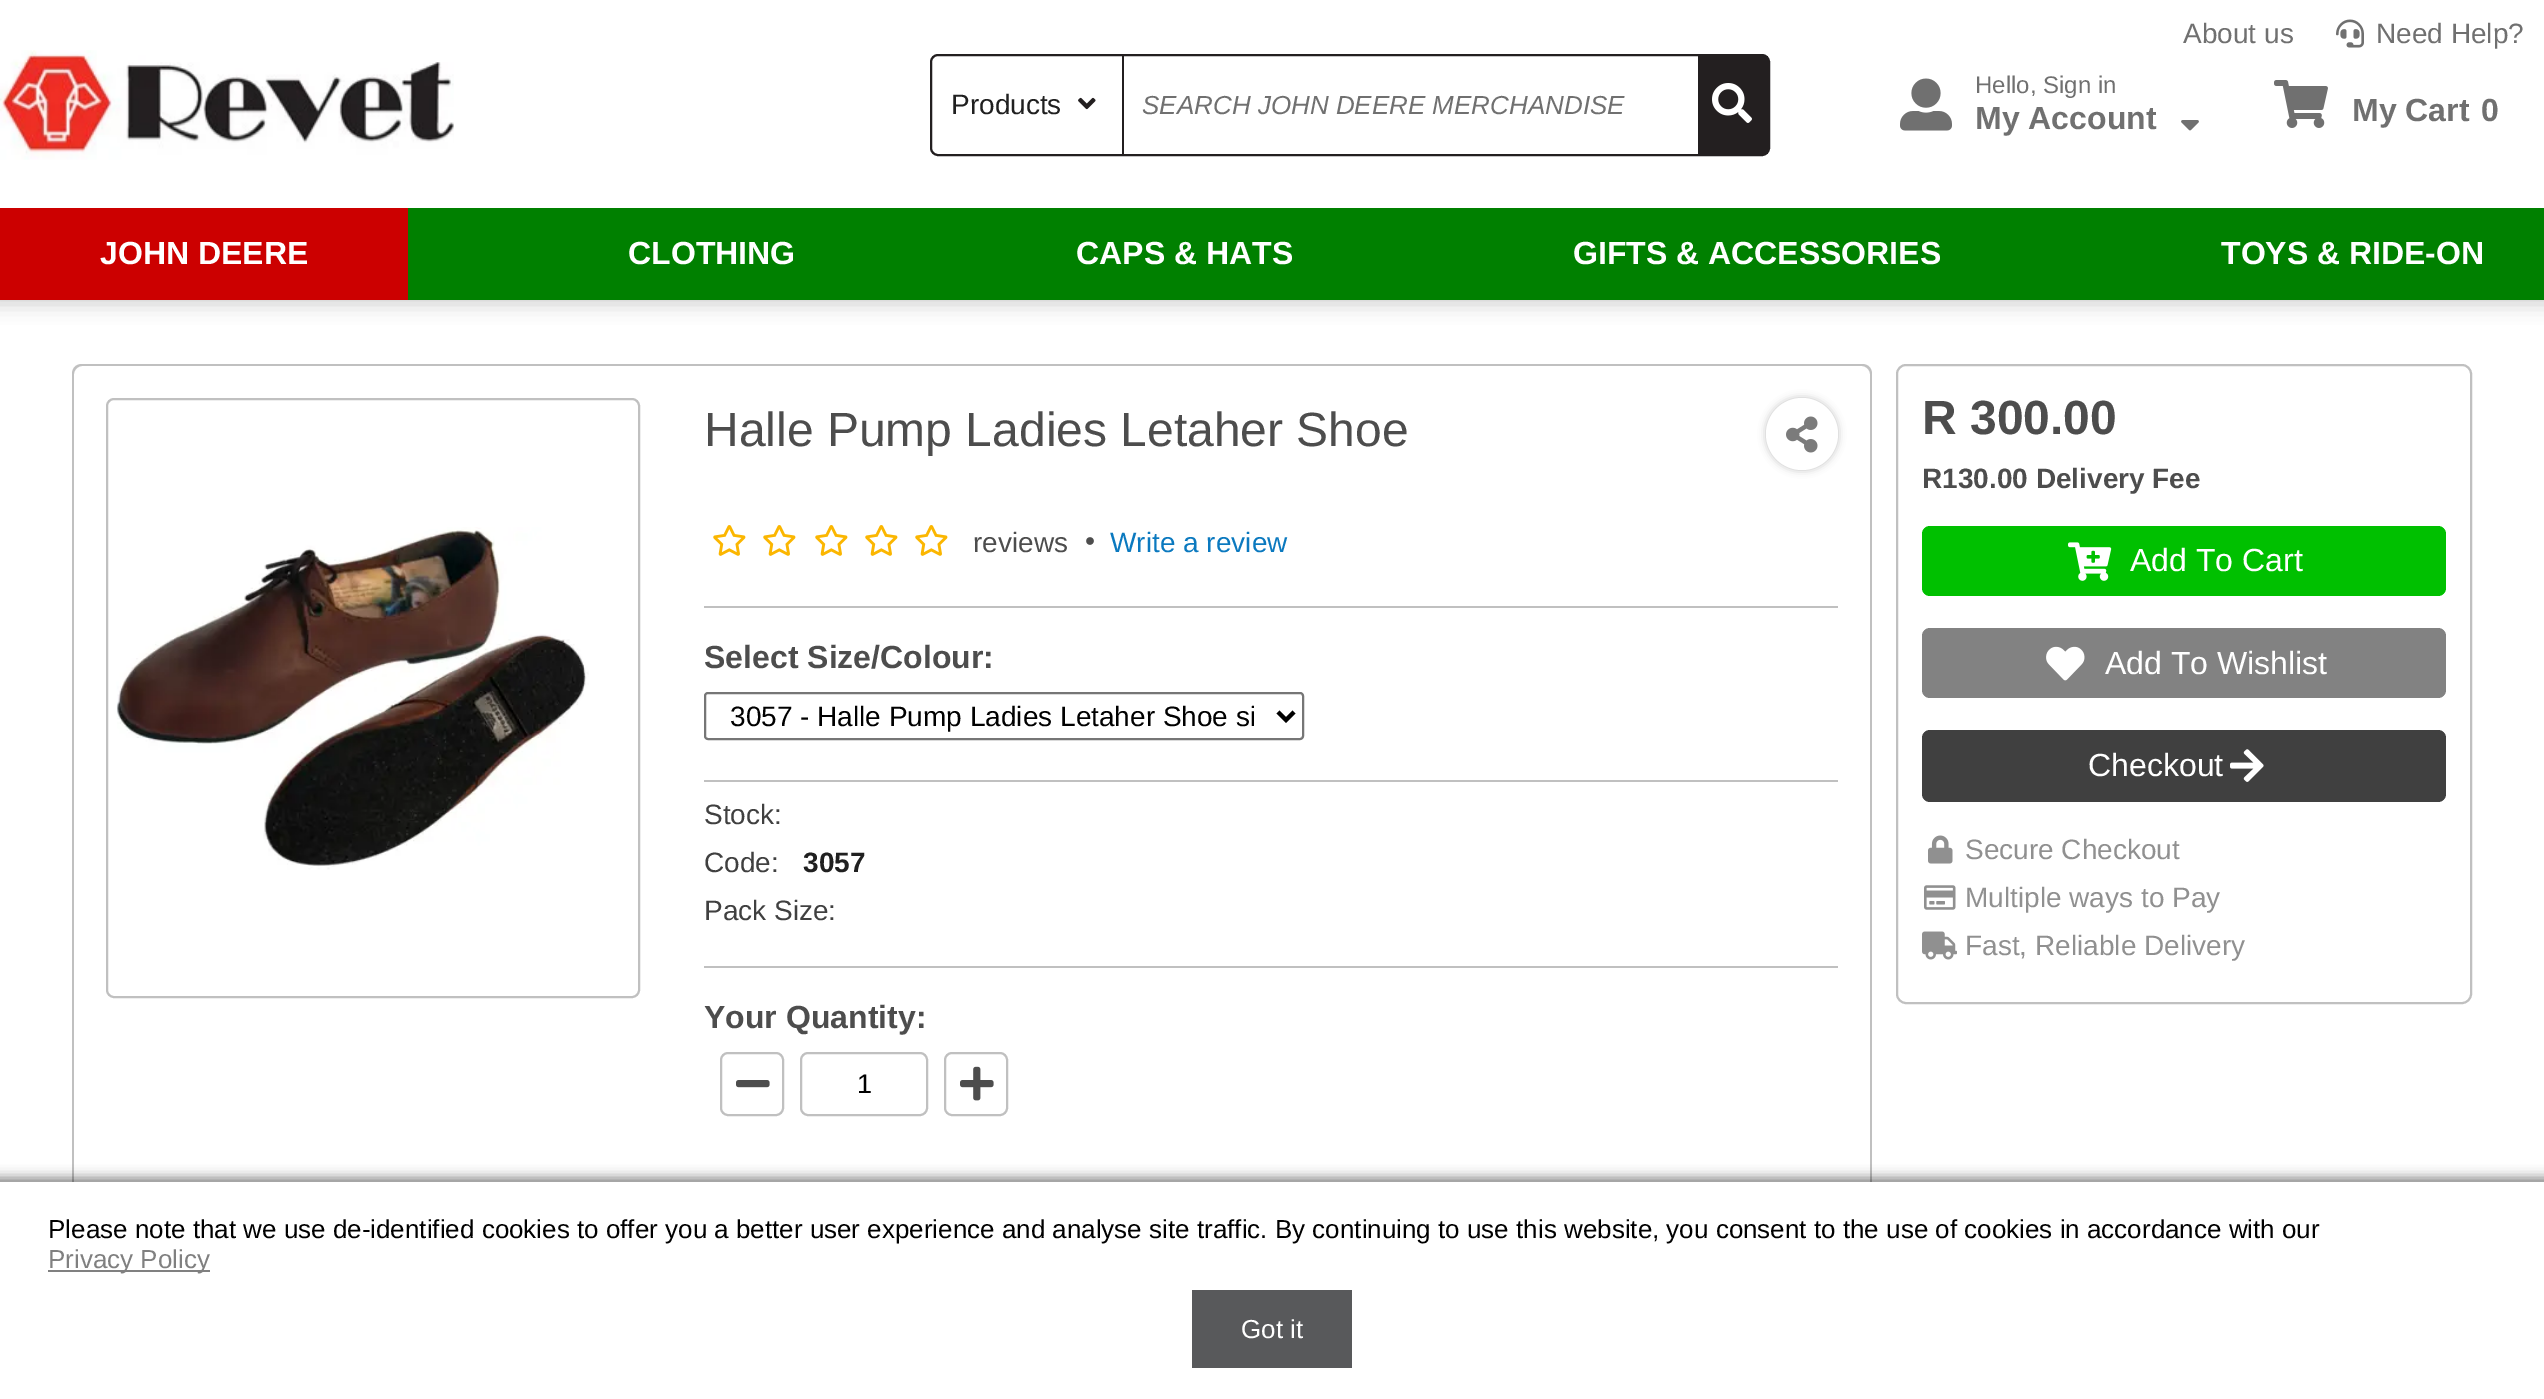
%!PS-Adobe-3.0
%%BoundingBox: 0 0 2544 1399
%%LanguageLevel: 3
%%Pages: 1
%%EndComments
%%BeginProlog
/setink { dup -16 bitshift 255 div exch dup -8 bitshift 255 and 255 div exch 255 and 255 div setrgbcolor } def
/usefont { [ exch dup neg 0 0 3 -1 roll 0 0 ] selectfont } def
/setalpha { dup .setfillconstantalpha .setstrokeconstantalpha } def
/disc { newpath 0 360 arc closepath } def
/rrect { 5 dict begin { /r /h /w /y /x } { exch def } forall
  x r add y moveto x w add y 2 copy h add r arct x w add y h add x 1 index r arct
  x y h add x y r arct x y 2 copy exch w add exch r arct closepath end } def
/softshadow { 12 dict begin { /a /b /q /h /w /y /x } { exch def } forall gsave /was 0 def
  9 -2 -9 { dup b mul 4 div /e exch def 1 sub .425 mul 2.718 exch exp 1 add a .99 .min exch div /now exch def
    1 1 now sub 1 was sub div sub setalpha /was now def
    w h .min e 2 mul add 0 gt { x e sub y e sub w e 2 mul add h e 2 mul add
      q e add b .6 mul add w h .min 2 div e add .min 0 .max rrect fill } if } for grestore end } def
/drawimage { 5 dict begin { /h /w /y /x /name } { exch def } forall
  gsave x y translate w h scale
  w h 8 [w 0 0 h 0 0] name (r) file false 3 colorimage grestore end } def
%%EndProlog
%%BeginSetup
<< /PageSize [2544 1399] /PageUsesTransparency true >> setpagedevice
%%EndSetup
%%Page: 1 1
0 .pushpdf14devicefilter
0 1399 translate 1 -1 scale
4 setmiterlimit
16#FFFFFF setink
0 0 2544 1399 rectfill
gsave
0 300 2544 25 rectclip
16#CCCCCC setink
-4 -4 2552 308 0 10 1 softshadow
grestore
(img1.raw) 0 50 454 110 drawimage
16#231F20 setink
2 setlinewidth
931 55 838 100 7 rrect stroke
1122 56 2 98 rectfill
/LiberationSans-Regular 28 usefont
16#202020 setink
951 114 moveto (Products) show
(img2.raw) 1078 97 18 13 drawimage
/LiberationSans-Italic 26 usefont
16#707070 setink
1142 114 moveto (SEARCH JOHN DEERE MERCHANDISE) show
16#231F20 setink
1698 56 70 98 rectfill
(img3.raw) 1712 83 40 40 drawimage
/LiberationSans-Regular 28 usefont
16#707070 setink
2183 43 moveto (About us) show
(img4.raw) 2336 19 28 29 drawimage
2376 43 moveto (Need Help?) show
(img5.raw) 1900 78 52 53 drawimage
/LiberationSans-Regular 24 usefont
1975 93 moveto (Hello, Sign in) show
/LiberationSans-Bold 32 usefont
1975 129 moveto (My Account) show
(img6.raw) 2181 120 18 11 drawimage
(img7.raw) 2274 80 54 48 drawimage
2352 121 moveto (My Cart) show
2481 121 moveto (0) show
16#CC0000 setink
0 208 408 92 rectfill
16#FFFFFF setink
100 264 moveto (JOHN DEERE) show
16#008000 setink
408 208 2136 92 rectfill
16#FFFFFF setink
[
    [(CLOTHING) 628 264]
    [(CAPS & HATS) 1076 264]
    [(GIFTS & ACCESSORIES) 1573 264]
    [(TOYS & RIDE-ON) 2221 264]
] { aload pop moveto show } forall
16#C0C0C0 setink
82 364 moveto 672 364 lineto 672 1198 lineto 82 1198 lineto 76 1198 72 1194 72 1188 curveto 72 374 lineto 72 368 76 364 82 364 curveto closepath 82 366 moveto 672 366 lineto 672 1196 lineto 82 1196 lineto 78 1196 74 1192 74 1188 curveto 74 374 lineto 74 370 78 366 82 366 curveto closepath eofill
107 399 532 598 7 rrect stroke
(img8.raw) 116 527 473 343 drawimage
672 364 moveto 1862 364 lineto 1868 364 1872 368 1872 374 curveto 1872 1188 lineto 1872 1194 1868 1198 1862 1198 curveto 672 1198 lineto closepath 672 366 moveto 1862 366 lineto 1866 366 1870 370 1870 374 curveto 1870 1188 lineto 1870 1192 1866 1196 1862 1196 curveto 672 1196 lineto closepath eofill
/LiberationSans-Regular 48 usefont
16#4D4D4D setink
704 446 moveto (Halle Pump Ladies Letaher Shoe) show
16#C0C0C0 setink
1766 398 72 72 36 4 1 softshadow
16#FFFFFF setink
1802 434 36 disc fill
(img9.raw) 1786 416 32 37 drawimage
(img10.raw) 713 525 33 31 drawimage
(img10.raw) 763 525 33 31 drawimage
(img10.raw) 815 525 33 31 drawimage
(img10.raw) 865 525 33 31 drawimage
(img10.raw) 915 525 33 31 drawimage
/LiberationSans-Regular 28 usefont
16#4D4D4D setink
973 552 moveto (reviews) show
(img11.raw) 1086 537 8 8 drawimage
16#0B79BF setink
1110 552 moveto (Write a review) show
16#C0C0C0 setink
704 606 1134 2 rectfill
/LiberationSans-Bold 32 usefont
16#4D4D4D setink
704 668 moveto (Select Size/Colour:) show
16#767676 setink
705 693 598 46 3 rrect stroke
16#000000 setink
4 setlinewidth
1278 712 moveto 1286 720 lineto 1294 712 lineto stroke
gsave
730 698 524 36 rectclip
/LiberationSans-Regular 28 usefont
730 726 moveto (3057 - Halle Pump Ladies Letaher Shoe si) show
grestore
16#C0C0C0 setink
704 780 1134 2 rectfill
/LiberationSans-Regular 28 usefont
16#404040 setink
704 824 moveto (Stock:) show
704 872 moveto (Code:) show
/LiberationSans-Bold 28 usefont
16#202020 setink
803 872 moveto (3057) show
/LiberationSans-Regular 28 usefont
16#404040 setink
704 920 moveto (Pack Size:) show
16#C0C0C0 setink
704 966 1134 2 rectfill
/LiberationSans-Bold 32 usefont
16#4D4D4D setink
704 1028 moveto (Your Quantity:) show
16#C0C0C0 setink
2 setlinewidth
721 1053 62 62 7 rrect stroke
(img12.raw) 736 1080 34 8 drawimage
801 1053 126 62 7 rrect stroke
/LiberationSans-Regular 27 usefont
16#000000 setink
857 1093 moveto (1) show
16#C0C0C0 setink
945 1053 62 62 7 rrect stroke
(img13.raw) 960 1066 34 35 drawimage
1897 365 574 638 9 rrect stroke
/LiberationSans-Bold 48 usefont
16#4D4D4D setink
1922 434 moveto (R 300.00) show
/LiberationSans-Bold 28 usefont
1922 488 moveto (R130.00 Delivery Fee) show
16#00C000 setink
1922 526 524 70 8 rrect fill
(img14.raw) 2068 542 44 39 drawimage
/LiberationSans-Regular 32 usefont
16#FFFFFF setink
2130 571 moveto (Add To Cart) show
16#828282 setink
1922 628 524 70 8 rrect fill
(img15.raw) 2046 646 39 35 drawimage
16#FFFFFF setink
2105 674 moveto (Add To Wishlist) show
16#404040 setink
1922 730 524 72 8 rrect fill
16#FFFFFF setink
2088 776 moveto (Checkout) show
(img16.raw) 2230 749 34 33 drawimage
(img17.raw) 1928 835 25 29 drawimage
/LiberationSans-Regular 28 usefont
16#909090 setink
1965 859 moveto (Secure Checkout) show
(img18.raw) 1924 885 32 25 drawimage
1965 907 moveto (Multiple ways to Pay) show
(img19.raw) 1922 931 35 29 drawimage
1965 955 moveto (Fast, Reliable Delivery) show
16#000000 setink
-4 1178 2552 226 0 6 0.5 softshadow
16#FFFFFF setink
0 1182 2544 217 rectfill
/LiberationSans-Regular 26 usefont
16#000000 setink
48 1238 moveto (Please note that we use de-identified cookies to offer you a better user experience and analyse site traffic. By continuing to use this website, you consent to the use of cookies in accordance with our) show
16#808080 setink
48 1270 162 2 rectfill
48 1268 moveto (Privacy Policy) show
16#58595B setink
1192 1290 160 78 rectfill
16#FFFFFF setink
1241 1338 moveto (Got it) show
.poppdf14devicefilter showpage
%%EOF
